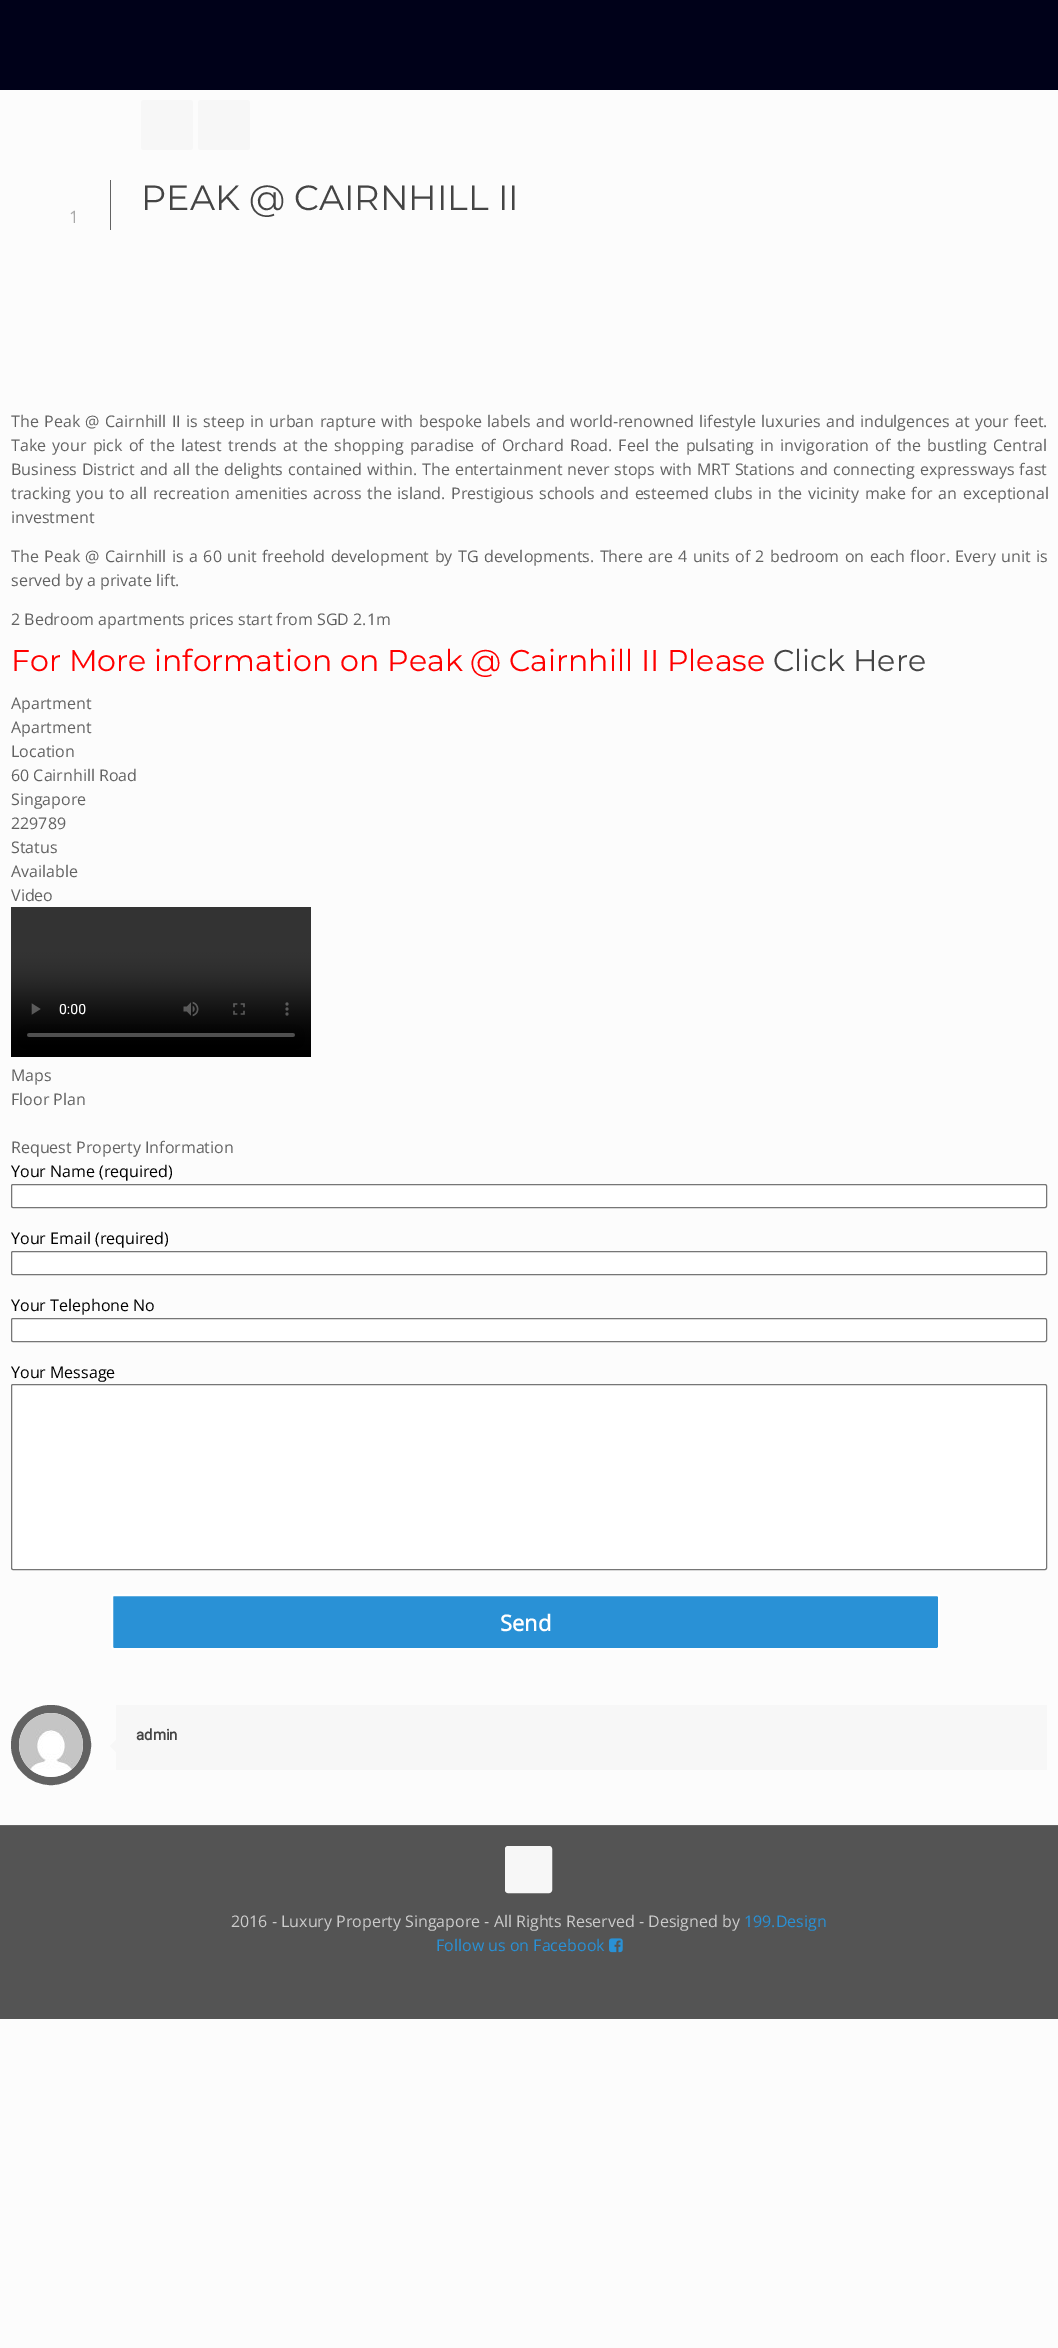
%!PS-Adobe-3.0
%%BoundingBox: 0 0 1058 2348
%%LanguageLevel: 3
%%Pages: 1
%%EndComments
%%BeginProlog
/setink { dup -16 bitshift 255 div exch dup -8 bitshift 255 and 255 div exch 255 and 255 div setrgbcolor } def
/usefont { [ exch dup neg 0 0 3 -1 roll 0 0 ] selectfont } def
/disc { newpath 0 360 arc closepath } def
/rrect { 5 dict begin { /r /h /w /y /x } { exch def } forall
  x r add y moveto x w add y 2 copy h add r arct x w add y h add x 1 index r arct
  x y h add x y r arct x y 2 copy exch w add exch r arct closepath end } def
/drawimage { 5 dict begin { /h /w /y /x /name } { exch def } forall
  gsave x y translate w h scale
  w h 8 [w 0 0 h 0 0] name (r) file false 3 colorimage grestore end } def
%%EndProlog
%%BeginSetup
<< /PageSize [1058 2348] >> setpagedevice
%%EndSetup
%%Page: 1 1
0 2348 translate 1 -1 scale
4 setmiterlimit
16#FCFCFC setink
0 0 1058 2348 rectfill
16#000119 setink
0 0 1058 90 rectfill
16#F7F7F7 setink
141 100 52 50 3 rrect fill
198 100 52 50 3 rrect fill
/OpenSans-Regular 17 usefont
16#A8A8A8 setink
69 223 moveto (1) show
16#626262 setink
110 180 1 50 rectfill
/Montserrat-Thin 35 usefont
16#444444 setink
141 210 moveto (PEAK @ CAIRNHILL II) show
/OpenSans-Regular 16 usefont
16#626262 setink
11 427 moveto 1.3 0 32 (The Peak @ Cairnhill II is steep in urban rapture with bespoke labels and world-renowned lifestyle luxuries and indulgences at your feet.) widthshow
11 451 moveto 2.1 0 32 (Take your pick of the latest trends at the shopping paradise of Orchard Road. Feel the pulsating in invigoration of the bustling Central) widthshow
11 475 moveto 0.75 0 32 (Business District and all the delights contained within. The entertainment never stops with MRT Stations and connecting expressways fast) widthshow
11 499 moveto 1.4 0 32 (tracking you to all recreation amenities across the island. Prestigious schools and esteemed clubs in the vicinity make for an exceptional) widthshow
11 523 moveto (investment) show
11 562 moveto 1.3 0 32 (The Peak @ Cairnhill is a 60 unit freehold development by TG developments. There are 4 units of 2 bedroom on each floor. Every unit is) widthshow
11 586 moveto (served by a private lift.) show
11 625 moveto (2 Bedroom apartments prices start from SGD 2.1m) show
/Montserrat-Thin 30 usefont
16#FF0000 setink
11 671 moveto (For More information on Peak @ Cairnhill II Please) show
16#444444 setink
773 671 moveto (Click Here) show
/OpenSans-Regular 16 usefont
16#626262 setink
[
    [(Apartment) 11 709]
    [(Apartment) 11 733]
    [(Location) 11 757]
    [(60 Cairnhill Road) 11 781]
    [(Singapore) 11 805]
    [(229789) 11 829]
    [(Status) 11 853]
    [(Available) 11 877]
    [(Video) 11 901]
] { aload pop moveto show } forall
(img1.raw) 11 907 300 150 drawimage
[
    [(Maps) 11 1081]
    [(Floor Plan) 11 1105]
    [(Request Property Information) 11 1153]
] { aload pop moveto show } forall
16#000000 setink
11 1177 moveto (Your Name \(required\)) show
16#FFFFFF setink
11.5 1184.5 1035 23 1.5 rrect gsave fill grestore
16#767676 setink
stroke
16#000000 setink
11 1244 moveto (Your Email \(required\)) show
16#FFFFFF setink
11.5 1251.5 1035 23 1.5 rrect gsave fill grestore
16#767676 setink
stroke
16#000000 setink
11 1311 moveto (Your Telephone No) show
16#FFFFFF setink
11.5 1318.5 1035 23 1.5 rrect gsave fill grestore
16#767676 setink
stroke
16#000000 setink
11 1378 moveto (Your Message) show
16#FFFFFF setink
11.5 1384.5 1035 185 1.5 rrect gsave fill grestore
16#767676 setink
stroke
16#2991D6 setink
112 1595 827 54 2 rrect gsave fill grestore
16#FFFFFF setink
2 setlinewidth
stroke
/OpenSans-Bold 22 usefont
500 1631 moveto (Send) show
16#626262 setink
8 setlinewidth
51 1745 36 disc stroke
(img2.raw) 19 1713 64 64 drawimage
16#F7F7F7 setink
116 1705 931 65 rectfill
/Roboto-Bold 15 usefont
16#444444 setink
136 1740 moveto (admin) show
16#F7F7F7 setink
116 1740 moveto 116 1752 lineto 110 1746 lineto closepath fill
16#545454 setink
0 1826 1058 193 rectfill
16#656565 setink
0 1825 1058 1 rectfill
16#F7F7F7 setink
506 1847 45 45 2 rrect gsave fill grestore
2 setlinewidth
stroke
/OpenSans-Regular 16 usefont
16#CCCCCC setink
231 1927 moveto (2016 - Luxury Property Singapore - All Rights Reserved - Designed by) show
16#2991D6 setink
744 1927 moveto (199.Design) show
436 1951 moveto (Follow us on Facebook) show
(img3.raw) 609 1938 14 15 drawimage
showpage
%%EOF
